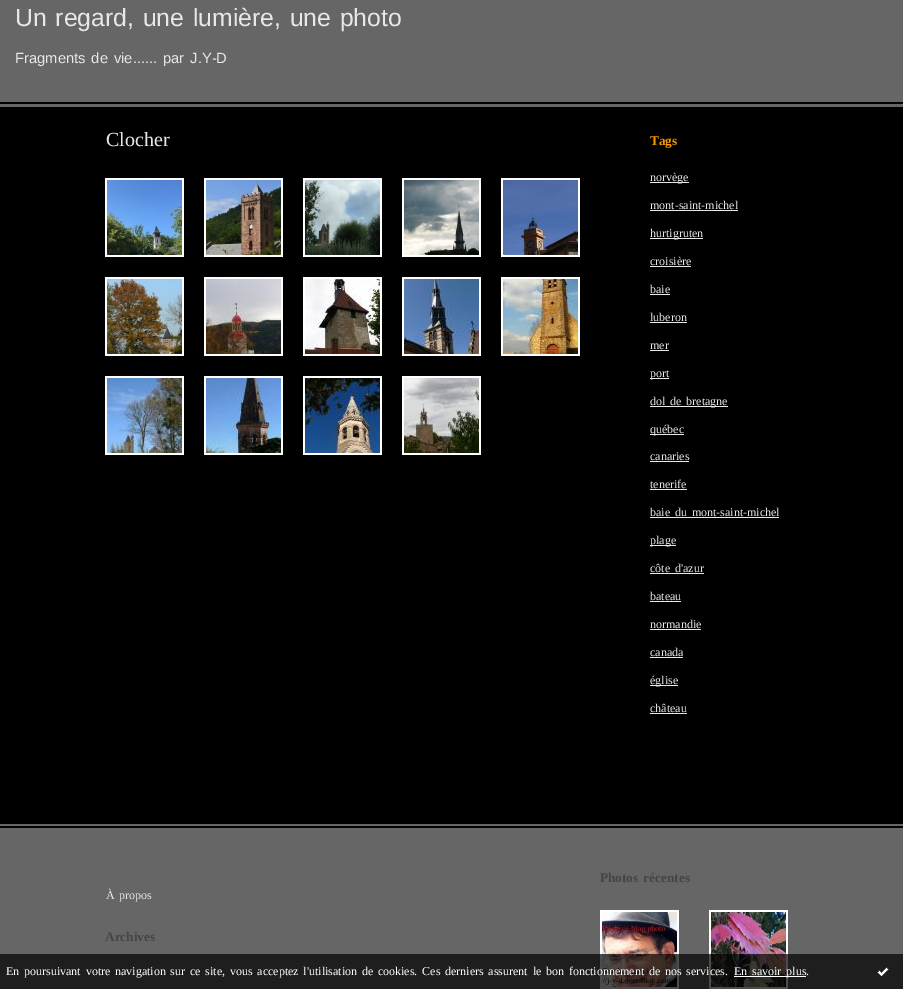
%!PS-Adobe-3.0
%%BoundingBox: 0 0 903 989
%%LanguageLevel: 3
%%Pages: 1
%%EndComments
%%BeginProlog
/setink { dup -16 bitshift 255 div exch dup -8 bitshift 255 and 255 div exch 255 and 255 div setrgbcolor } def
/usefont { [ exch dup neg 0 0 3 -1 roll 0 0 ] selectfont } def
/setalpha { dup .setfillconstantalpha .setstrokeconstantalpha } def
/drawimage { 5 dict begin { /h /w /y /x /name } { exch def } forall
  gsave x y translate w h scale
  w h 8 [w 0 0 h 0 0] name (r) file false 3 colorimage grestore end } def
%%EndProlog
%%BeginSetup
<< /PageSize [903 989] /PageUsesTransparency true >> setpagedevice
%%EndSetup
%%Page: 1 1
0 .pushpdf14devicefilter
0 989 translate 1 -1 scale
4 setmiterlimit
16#666666 setink
0 0 903 989 rectfill
/LiberationSans-Regular 24.8 usefont
16#E8E8E8 setink
15 26 moveto 1.8 0 32 (Un regard, une lumière, une photo) widthshow
/LiberationSans-Regular 14.75 usefont
15 63 moveto 1.8 0 32 (Fragments de vie...... par J.Y-D) widthshow
[
    [0 102 903 2 16#000000]
    [0 107 903 721 16#000000]
    [0 824 903 2 16#666666]
] { aload pop setink rectfill } forall
/LiberationSerif-Regular 20 usefont
16#E8E8E8 setink
106 146 moveto (Clocher) show
16#FFFFFF setink
105 178 79 79 rectfill
(img1.raw) 107 180 75 75 drawimage
204 178 79 79 rectfill
(img2.raw) 206 180 75 75 drawimage
303 178 79 79 rectfill
(img3.raw) 305 180 75 75 drawimage
402 178 79 79 rectfill
(img4.raw) 404 180 75 75 drawimage
501 178 79 79 rectfill
(img5.raw) 503 180 75 75 drawimage
105 277 79 79 rectfill
(img6.raw) 107 279 75 75 drawimage
204 277 79 79 rectfill
(img7.raw) 206 279 75 75 drawimage
303 277 79 79 rectfill
(img8.raw) 305 279 75 75 drawimage
402 277 79 79 rectfill
(img9.raw) 404 279 75 75 drawimage
501 277 79 79 rectfill
(img10.raw) 503 279 75 75 drawimage
105 376 79 79 rectfill
(img11.raw) 107 378 75 75 drawimage
204 376 79 79 rectfill
(img12.raw) 206 378 75 75 drawimage
303 376 79 79 rectfill
(img13.raw) 305 378 75 75 drawimage
402 376 79 79 rectfill
(img14.raw) 404 378 75 75 drawimage
/LiberationSerif-Bold 13.25 usefont
16#FF9900 setink
650 145 moveto (Tags) show
16#E8E8E8 setink
650 182 39 1 rectfill
/LiberationSerif-Regular 12 usefont
650 181 moveto (norvège) show
650 209 moveto (mont-saint-michel) show
650 210 88 1 rectfill
650 238 53 1 rectfill
650 237 moveto (hurtigruten) show
650 265 moveto (croisière) show
650 266 41 1 rectfill
650 293 moveto (baie) show
650 294 20 1 rectfill
650 321 moveto (luberon) show
650 322 37 1 rectfill
650 349 moveto (mer) show
650 350 19 1 rectfill
650 378 19 1 rectfill
650 377 moveto (port) show
650 406 78 1 rectfill
650 405 moveto 1.8 0 32 (dol de bretagne) widthshow
650 434 34 1 rectfill
650 433 moveto (québec) show
650 460 moveto (canaries) show
650 461 39 1 rectfill
650 488 moveto (tenerife) show
650 489 37 1 rectfill
650 516 moveto 1.8 0 32 (baie du mont-saint-michel) widthshow
650 517 129 1 rectfill
650 545 26 1 rectfill
650 544 moveto (plage) show
650 572 moveto 1.8 0 32 (côte d'azur) widthshow
650 573 54 1 rectfill
650 600 moveto (bateau) show
650 601 31 1 rectfill
650 628 moveto (normandie) show
650 629 51 1 rectfill
650 656 moveto (canada) show
650 657 33 1 rectfill
650 685 28 1 rectfill
650 684 moveto (église) show
650 712 moveto (château) show
650 713 37 1 rectfill
/LiberationSerif-Bold 13.25 usefont
16#444444 setink
600 882 moveto 1.8 0 32 (Photos récentes) widthshow
16#FFFFFF setink
600 910 79 79 rectfill
709 910 79 79 rectfill
(img15.raw) 602 912 75 75 drawimage
(img16.raw) 711 912 75 75 drawimage
/LiberationSerif-Regular 12 usefont
16#E8E8E8 setink
106 899 moveto 1.8 0 32 (À propos) widthshow
/LiberationSerif-Bold 13.25 usefont
16#444444 setink
105 941 moveto (Archives) show
0.7 setalpha
16#000000 setink
0 954 903 35 rectfill
/LiberationSerif-Regular 12 usefont
1 setalpha
16#FFFFFF setink
6 975 moveto 1.8 0 32 (En poursuivant votre navigation sur ce site, vous acceptez l'utilisation de cookies. Ces derniers assurent le bon fonctionnement de nos services.) widthshow
734 976 72 1 rectfill
734 975 moveto 1.8 0 32 (En savoir plus) widthshow
806 975 moveto (.) show
(img17.raw) 877 967 12 9 drawimage
.poppdf14devicefilter showpage
%%EOF
